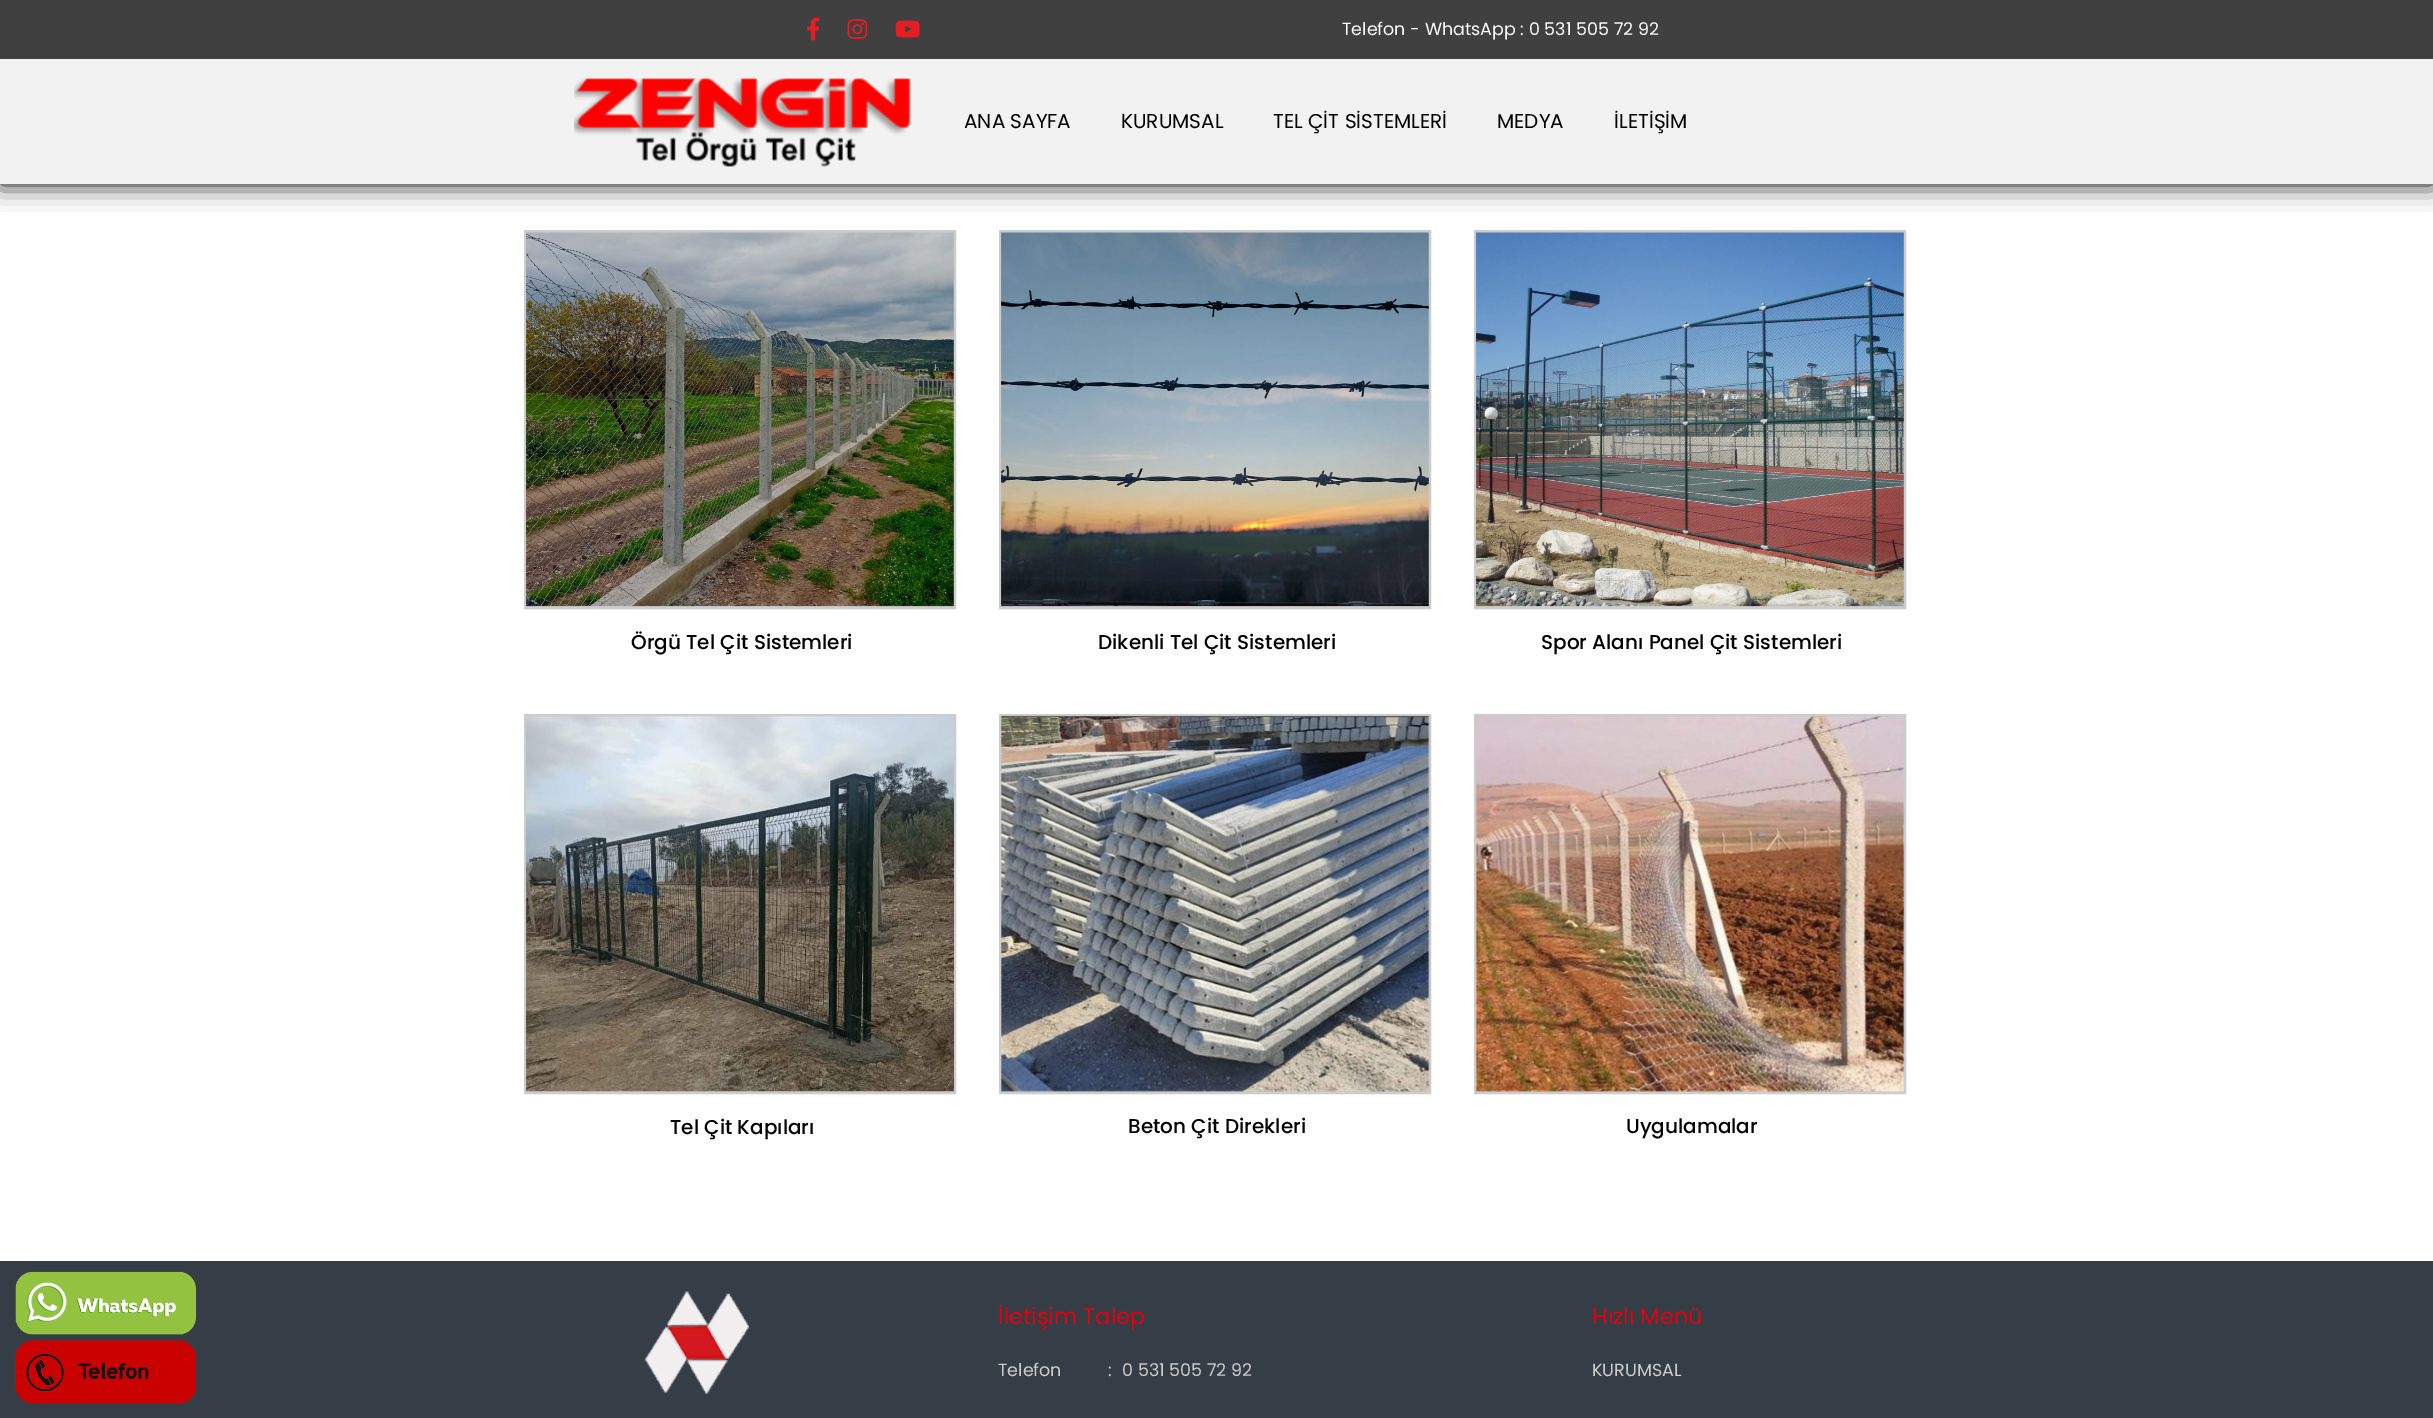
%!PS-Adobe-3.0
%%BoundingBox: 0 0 2433 1418
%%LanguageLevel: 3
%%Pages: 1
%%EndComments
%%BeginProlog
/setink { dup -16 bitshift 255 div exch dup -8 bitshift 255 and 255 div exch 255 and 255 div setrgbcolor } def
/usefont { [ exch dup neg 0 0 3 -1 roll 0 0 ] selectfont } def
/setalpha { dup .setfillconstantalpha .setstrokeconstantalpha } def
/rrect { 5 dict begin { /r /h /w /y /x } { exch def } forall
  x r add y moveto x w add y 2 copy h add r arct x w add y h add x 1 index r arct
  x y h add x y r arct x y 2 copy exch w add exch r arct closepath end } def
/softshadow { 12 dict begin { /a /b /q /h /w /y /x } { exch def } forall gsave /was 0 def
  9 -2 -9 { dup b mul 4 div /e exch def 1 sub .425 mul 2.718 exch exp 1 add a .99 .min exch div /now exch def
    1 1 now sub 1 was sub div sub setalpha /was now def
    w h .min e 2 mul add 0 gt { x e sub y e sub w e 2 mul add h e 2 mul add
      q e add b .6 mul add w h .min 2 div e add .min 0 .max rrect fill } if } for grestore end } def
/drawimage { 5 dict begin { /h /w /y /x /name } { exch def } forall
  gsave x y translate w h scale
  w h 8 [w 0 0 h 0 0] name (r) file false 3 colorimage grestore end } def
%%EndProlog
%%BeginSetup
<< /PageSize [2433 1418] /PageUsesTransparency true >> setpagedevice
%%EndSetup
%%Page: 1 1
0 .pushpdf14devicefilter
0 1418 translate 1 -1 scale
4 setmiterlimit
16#FFFFFF setink
0 0 2433 1418 rectfill
16#000000 setink
0 0 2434 184 0 12.5 1 softshadow
16#F2F2F2 setink
0 59 2433 125 rectfill
16#404040 setink
0 0 2433 59 rectfill
(img1.raw) 807 17 13 24 drawimage
(img2.raw) 847 19 21 20 drawimage
(img3.raw) 895 20 25 18 drawimage
/Poppins-Regular 17.5 usefont
16#FFFFFF setink
1342 35 moveto (Telefon - WhatsApp : 0 531 505 72 92) show
(img4.raw) 574 78 337 89 drawimage
/Poppins-Regular 20 usefont
16#000000 setink
[
    [(ANA SAYFA) 964 128]
    [(KURUMSAL) 1121 128]
    [(TEL ÇİT SİSTEMLERİ) 1273 128]
    [(MEDYA) 1497 128]
    [(İLETİŞİM) 1614 128]
] { aload pop moveto show } forall
16#CCCCCC setink
3 setlinewidth
525.5 231.5 429 376 rectstroke
(img5.raw) 526 232 428 375 drawimage
/Poppins-Medium 20 usefont
16#000000 setink
631 649 moveto (Örgü Tel Çit Sistemleri) show
16#CCCCCC setink
1000.5 231.5 429 376 rectstroke
(img6.raw) 1001 232 428 375 drawimage
16#000000 setink
1098 649 moveto (Dikenli Tel Çit Sistemleri) show
16#CCCCCC setink
1475.5 231.5 429 376 rectstroke
(img7.raw) 1476 232 428 375 drawimage
16#000000 setink
1541 649 moveto (Spor Alanı Panel Çit Sistemleri) show
16#CCCCCC setink
525.5 715.5 429 377 rectstroke
(img8.raw) 526 716 428 376 drawimage
16#000000 setink
670 1134 moveto (Tel Çit Kapıları) show
16#CCCCCC setink
1000.5 715.5 429 377 rectstroke
(img9.raw) 1001 715 429 377 drawimage
16#000000 setink
1128 1133 moveto (Beton Çit Direkleri) show
16#CCCCCC setink
1475.5 715.5 429 377 rectstroke
(img10.raw) 1476 716 429 376 drawimage
16#000000 setink
1626 1133 moveto (Uygulamalar) show
16#353D46 setink
0 1261 2433 157 rectfill
(img11.raw) 15 1271 182 64 drawimage
(img12.raw) 15 1340 182 64 drawimage
(img13.raw) 644 1291 105 103 drawimage
/Poppins-Regular 22.5 usefont
16#E3000F setink
998 1324 moveto (İletişim Talep) show
/Poppins-Regular 17.5 usefont
16#CDCDCD setink
[
    [(Telefon) 998 1376]
    [(:) 1108 1376]
    [(0 531 505 72 92) 1122 1376]
] { aload pop moveto show } forall
/Poppins-Regular 22.5 usefont
16#E3000F setink
1592 1324 moveto (Hızlı Menü) show
/Poppins-Regular 17.5 usefont
16#CDCDCD setink
1592 1376 moveto (KURUMSAL) show
.poppdf14devicefilter showpage
%%EOF
